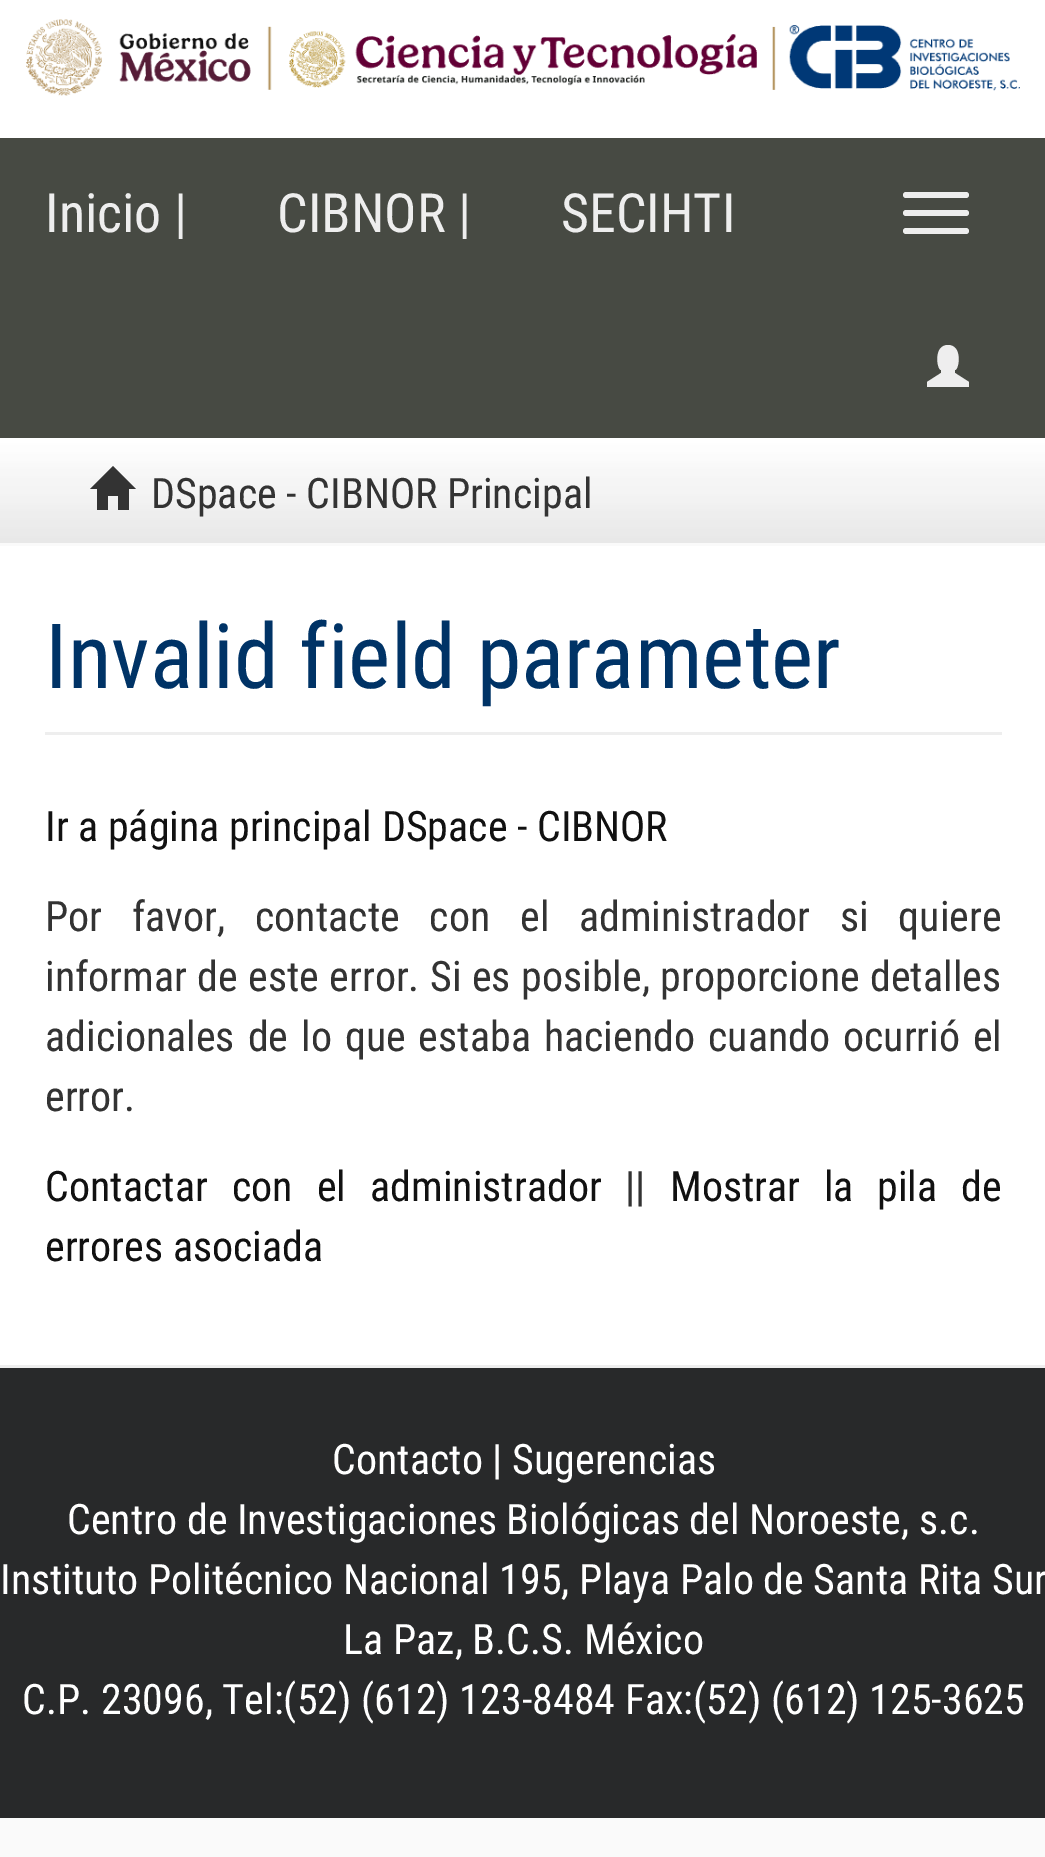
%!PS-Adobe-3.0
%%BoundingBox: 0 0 1045 1857
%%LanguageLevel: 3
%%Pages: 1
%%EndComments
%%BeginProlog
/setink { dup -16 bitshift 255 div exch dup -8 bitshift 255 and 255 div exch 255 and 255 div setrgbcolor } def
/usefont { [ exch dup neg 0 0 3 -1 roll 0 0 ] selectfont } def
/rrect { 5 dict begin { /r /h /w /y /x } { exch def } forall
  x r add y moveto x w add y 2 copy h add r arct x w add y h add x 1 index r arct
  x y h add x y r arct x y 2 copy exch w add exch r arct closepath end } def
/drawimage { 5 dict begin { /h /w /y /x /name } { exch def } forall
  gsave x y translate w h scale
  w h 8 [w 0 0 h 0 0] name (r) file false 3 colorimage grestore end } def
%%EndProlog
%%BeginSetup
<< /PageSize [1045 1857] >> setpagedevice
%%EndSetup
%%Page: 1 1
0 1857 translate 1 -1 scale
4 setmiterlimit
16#FAFAFA setink
0 0 1045 1857 rectfill
16#FFFFFF setink
0 0 1045 138 rectfill
(img1.raw) 26 19 994 77 drawimage
16#474A43 setink
0 138 1045 300 rectfill
/RobotoCondensed-Regular 54 usefont
16#EEEEEE setink
[
    [(Inicio |) 45 232]
    [(CIBNOR |) 277 232]
    [(SECIHTI) 561 232]
] { aload pop moveto show } forall
903 192 66 6 3 rrect fill
903 210 66 6 3 rrect fill
903 228 66 6 3 rrect fill
927 387 moveto 927 382 lineto 941 373 lineto 941 370 lineto 937 370 933 345 948 345 curveto 963 345 959 370 955 370 curveto 955 373 lineto 969 382 lineto 969 387 lineto closepath fill
(img2.raw) 0 438 1045 105 drawimage
16#333333 setink
90 489 moveto 113 466 lineto 136 489 lineto 129 489 lineto 129 510 lineto 118 510 lineto 118 496 lineto 108 496 lineto 108 510 lineto 97 510 lineto 97 489 lineto closepath fill
/RobotoCondensed-Regular 42 usefont
151 508 moveto (DSpace - CIBNOR Principal) show
16#FFFFFF setink
0 546 1045 819 rectfill
16#EEEEEE setink
45 732 957 3 rectfill
/RobotoCondensed-Regular 90 usefont
16#003366 setink
45 688 moveto (Invalid field parameter) show
/RobotoCondensed-Regular 42 usefont
16#111111 setink
45 841 moveto (Ir a página principal DSpace - CIBNOR) show
16#333333 setink
45 931 moveto 20 0 32 (Por favor, contacte con el administrador si quiere) widthshow
45 991 moveto 0.75 0 32 (informar de este error. Si es posible, proporcione detalles) widthshow
45 1051 moveto 3.25 0 32 (adicionales de lo que estaba haciendo cuando ocurrió el) widthshow
45 1111 moveto (error.) show
16#111111 setink
45 1201 moveto 14.5 0 32 (Contactar con el administrador) widthshow
16#333333 setink
625 1201 moveto (||) show
16#111111 setink
670 1201 moveto 14 0 32 (Mostrar la pila de) widthshow
45 1261 moveto (errores asociada) show
16#28292A setink
0 1368 1045 450 rectfill
16#EEEEEE setink
0 1365 1045 3 rectfill
16#FFFFFF setink
[
    [(Contacto | Sugerencias) 332 1474]
    [(Centro de Investigaciones Biológicas del Noroeste, s.c.) 67 1534]
    [(Instituto Politécnico Nacional 195, Playa Palo de Santa Rita Sur) 0 1594]
    [(La Paz, B.C.S. México) 343 1654]
    [(C.P. 23096, Tel:\(52\) \(612\) 123-8484 Fax:\(52\) \(612\) 125-3625) 22 1714]
] { aload pop moveto show } forall
showpage
%%EOF
